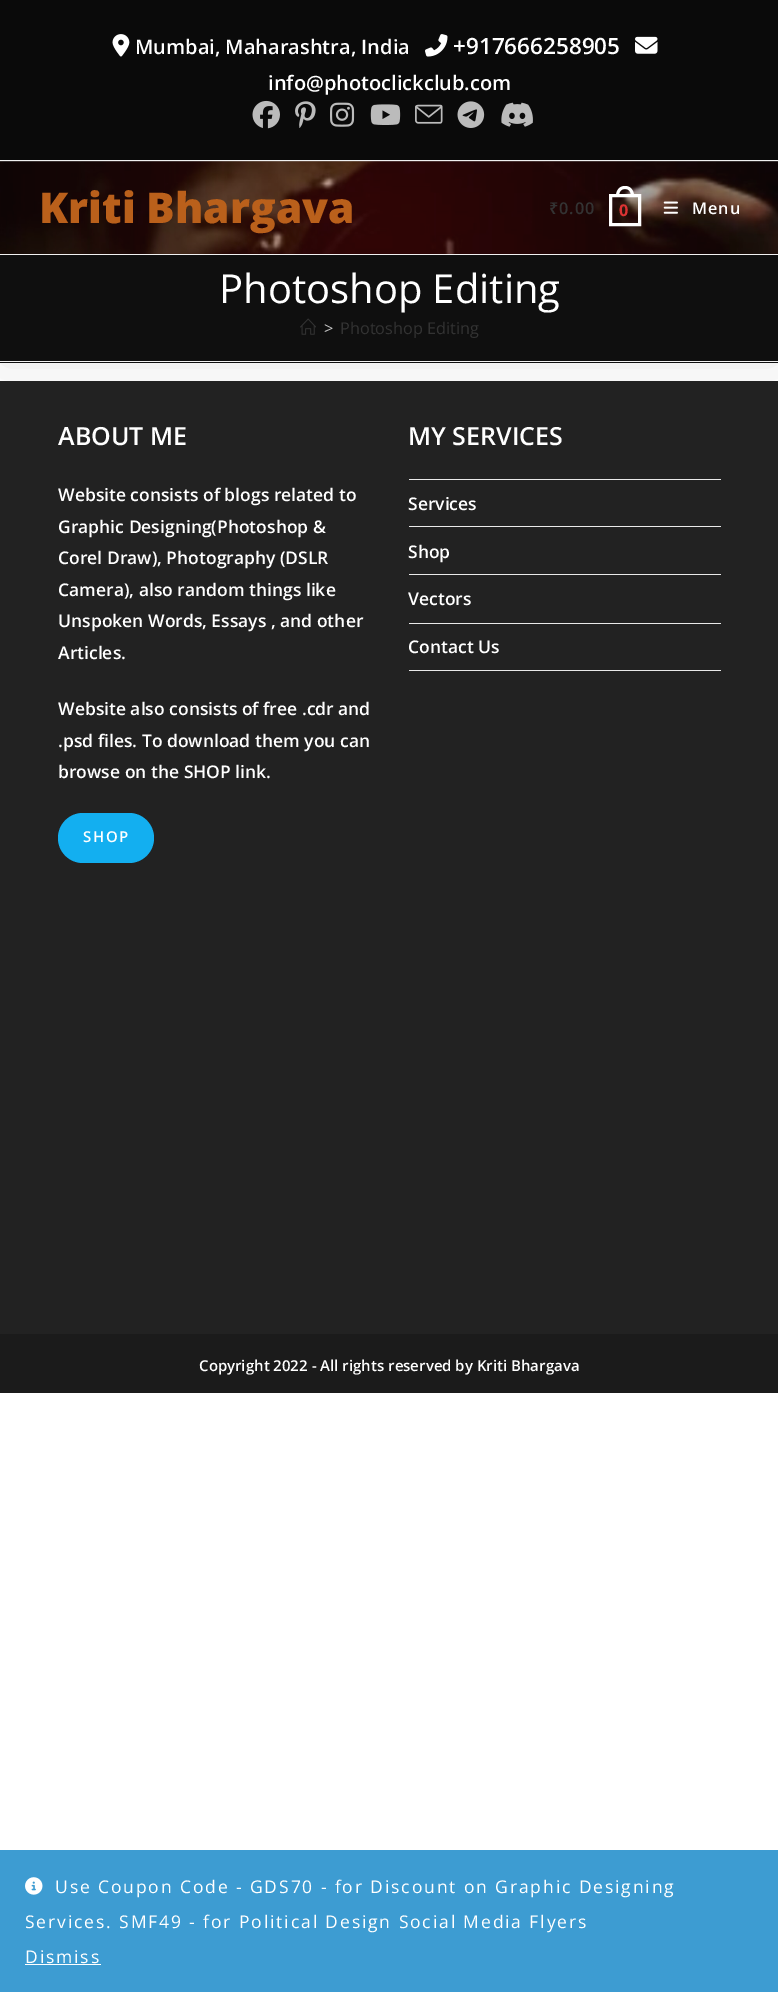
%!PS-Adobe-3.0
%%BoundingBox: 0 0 778 1992
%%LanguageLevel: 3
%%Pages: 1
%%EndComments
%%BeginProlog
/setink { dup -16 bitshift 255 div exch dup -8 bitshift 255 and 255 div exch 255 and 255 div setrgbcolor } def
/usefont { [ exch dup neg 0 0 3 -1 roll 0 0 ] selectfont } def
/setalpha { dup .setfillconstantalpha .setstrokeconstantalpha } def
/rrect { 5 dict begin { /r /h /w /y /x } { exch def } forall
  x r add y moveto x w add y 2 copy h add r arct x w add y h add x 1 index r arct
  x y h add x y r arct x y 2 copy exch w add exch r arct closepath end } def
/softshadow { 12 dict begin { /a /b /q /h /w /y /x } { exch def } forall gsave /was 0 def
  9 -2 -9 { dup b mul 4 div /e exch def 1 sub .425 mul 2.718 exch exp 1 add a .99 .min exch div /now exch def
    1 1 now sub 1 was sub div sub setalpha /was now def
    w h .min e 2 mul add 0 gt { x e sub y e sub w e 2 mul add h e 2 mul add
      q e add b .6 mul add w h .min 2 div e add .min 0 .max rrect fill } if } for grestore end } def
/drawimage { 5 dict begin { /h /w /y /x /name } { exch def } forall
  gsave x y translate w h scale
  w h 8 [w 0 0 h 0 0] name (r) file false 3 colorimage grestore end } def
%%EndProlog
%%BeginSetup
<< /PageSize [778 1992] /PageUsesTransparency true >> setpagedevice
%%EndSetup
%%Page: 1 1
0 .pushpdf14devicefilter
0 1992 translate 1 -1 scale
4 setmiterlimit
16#FFFFFF setink
0 0 778 1992 rectfill
16#0A0A0A setink
0 0 778 160 rectfill
16#F1F1F1 setink
0 160 778 1 rectfill
(img1.raw) 112 34 18 23 drawimage
/OpenSans-SemiBold 20 usefont
16#FFFFFF setink
135 54 moveto (Mumbai, Maharashtra, India) show
(img2.raw) 425 34 23 23 drawimage
/OpenSans-SemiBold 22.5 usefont
453 54 moveto (+917666258905) show
(img3.raw) 635 36 23 18 drawimage
/OpenSans-SemiBold 20 usefont
268 90 moveto (info@photoclickclub.com) show
(img4.raw) 252 100 28 29 drawimage
(img5.raw) 295 101 21 27 drawimage
(img6.raw) 330 102 25 25 drawimage
(img7.raw) 370 104 31 21 drawimage
(img8.raw) 415 104 28 20 drawimage
(img9.raw) 457 101 28 27 drawimage
(img10.raw) 501 102 32 25 drawimage
16#222222 setink
0 381 778 953 rectfill
16#000000 setink
0 255 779 108 0 25 0.1 softshadow
(img11.raw) 0 161 778 93 drawimage
16#F1F1F1 setink
0 254 778 1 rectfill
0.3 setalpha
16#0F0F0F setink
0 161 778 93 rectfill
/OpenSans-ExtraBold 42.5 usefont
1 setalpha
16#BA601B setink
39 223 moveto (Kriti Bhargava) show
/NotoSans-SemiBold 16.25 usefont
16#333333 setink
549 214 moveto 1 0 (₹) ashow
/OpenSans-SemiBold 16.25 usefont
559 214 moveto 1 0 (0.00) ashow
16#FFFFFF setink
3 setlinewidth
610.5 195.5 29 29 rectstroke
625 186 moveto 631 186 634 191 634 196 curveto 616 196 lineto 616 191 619 186 625 186 curveto closepath 625 189 moveto 629.5 189 631 192.5 631 196 curveto 619 196 lineto 619 192.5 620.5 189 625 189 curveto closepath eofill
/OpenSans-Bold 16.25 usefont
16#DD3333 setink
619 216 moveto 1 0 (0) ashow
(img12.raw) 663 201 15 13 drawimage
/OpenSans-SemiBold 16.25 usefont
16#FFFFFF setink
692 214 moveto 1 0 (Menu) ashow
16#0F0F0F setink
0 255 778 108 rectfill
16#F1F1F1 setink
0 361 778 1 rectfill
/OpenSans-Regular 40 usefont
16#FFFFFF setink
219 303 moveto (Photoshop Editing) show
(img13.raw) 300 318 16 17 drawimage
/OpenSans-Regular 16.25 usefont
16#C6C6C6 setink
324 334 moveto (>) show
16#333333 setink
340 334 moveto (Photoshop Editing) show
/OpenSans-SemiBold 25 usefont
16#FFFFFF setink
58 445 moveto (ABOUT ME) show
/OpenSans-SemiBold 17.5 usefont
[
    [(Website consists of blogs related to) 58 501]
    [(Graphic Designing\(Photoshop &) 58 533]
    [(Corel Draw\), Photography \(DSLR) 58 564]
    [(Camera\), also random things like) 58 596]
    [(Unspoken Words, Essays , and other) 58 627]
    [(Articles.) 58 659]
    [(Website also consists of free .cdr and) 58 715]
    [(.psd files. To download them you can) 58 747]
    [(browse on the SHOP link.) 58 778]
] { aload pop moveto show } forall
16#13AFF0 setink
58 813 96 50 25 rrect fill
/OpenSans-SemiBold 15 usefont
16#FFFFFF setink
83 842 moveto 1.5 0 (SHOP) ashow
/OpenSans-SemiBold 25 usefont
408 445 moveto (MY SERVICES) show
16#E9E9E9 setink
409 479 312 1 rectfill
409 526 312 1 rectfill
/OpenSans-SemiBold 17.5 usefont
16#FFFFFF setink
408 510 moveto (Services) show
16#E9E9E9 setink
409 574 312 1 rectfill
16#FFFFFF setink
408 558 moveto (Shop) show
16#E9E9E9 setink
409 623 312 1 rectfill
16#FFFFFF setink
408 605 moveto (Vectors) show
16#E9E9E9 setink
409 670 312 1 rectfill
16#FFFFFF setink
408 653 moveto (Contact Us) show
16#1B1B1B setink
0 1334 778 59 rectfill
/OpenSans-SemiBold 15 usefont
16#FFFFFF setink
199 1371 moveto (Copyright 2022 - All rights reserved by Kriti Bhargava) show
16#3D9CD2 setink
0 1850 778 142 rectfill
(img14.raw) 25 1877 18 18 drawimage
/OpenSans-Regular 17.5 usefont
16#FFFFFF setink
55 1893 moveto 1.88 0 (Use Coupon Code - GDS70 - for Discount on Graphic Designing) ashow
25 1928 moveto 1.88 0 (Services. SMF49 - for Political Design Social Media Flyers) ashow
25 1963 moveto 1.88 0 (Dismiss) ashow
25 1964 76 1 rectfill
.poppdf14devicefilter showpage
%%EOF
